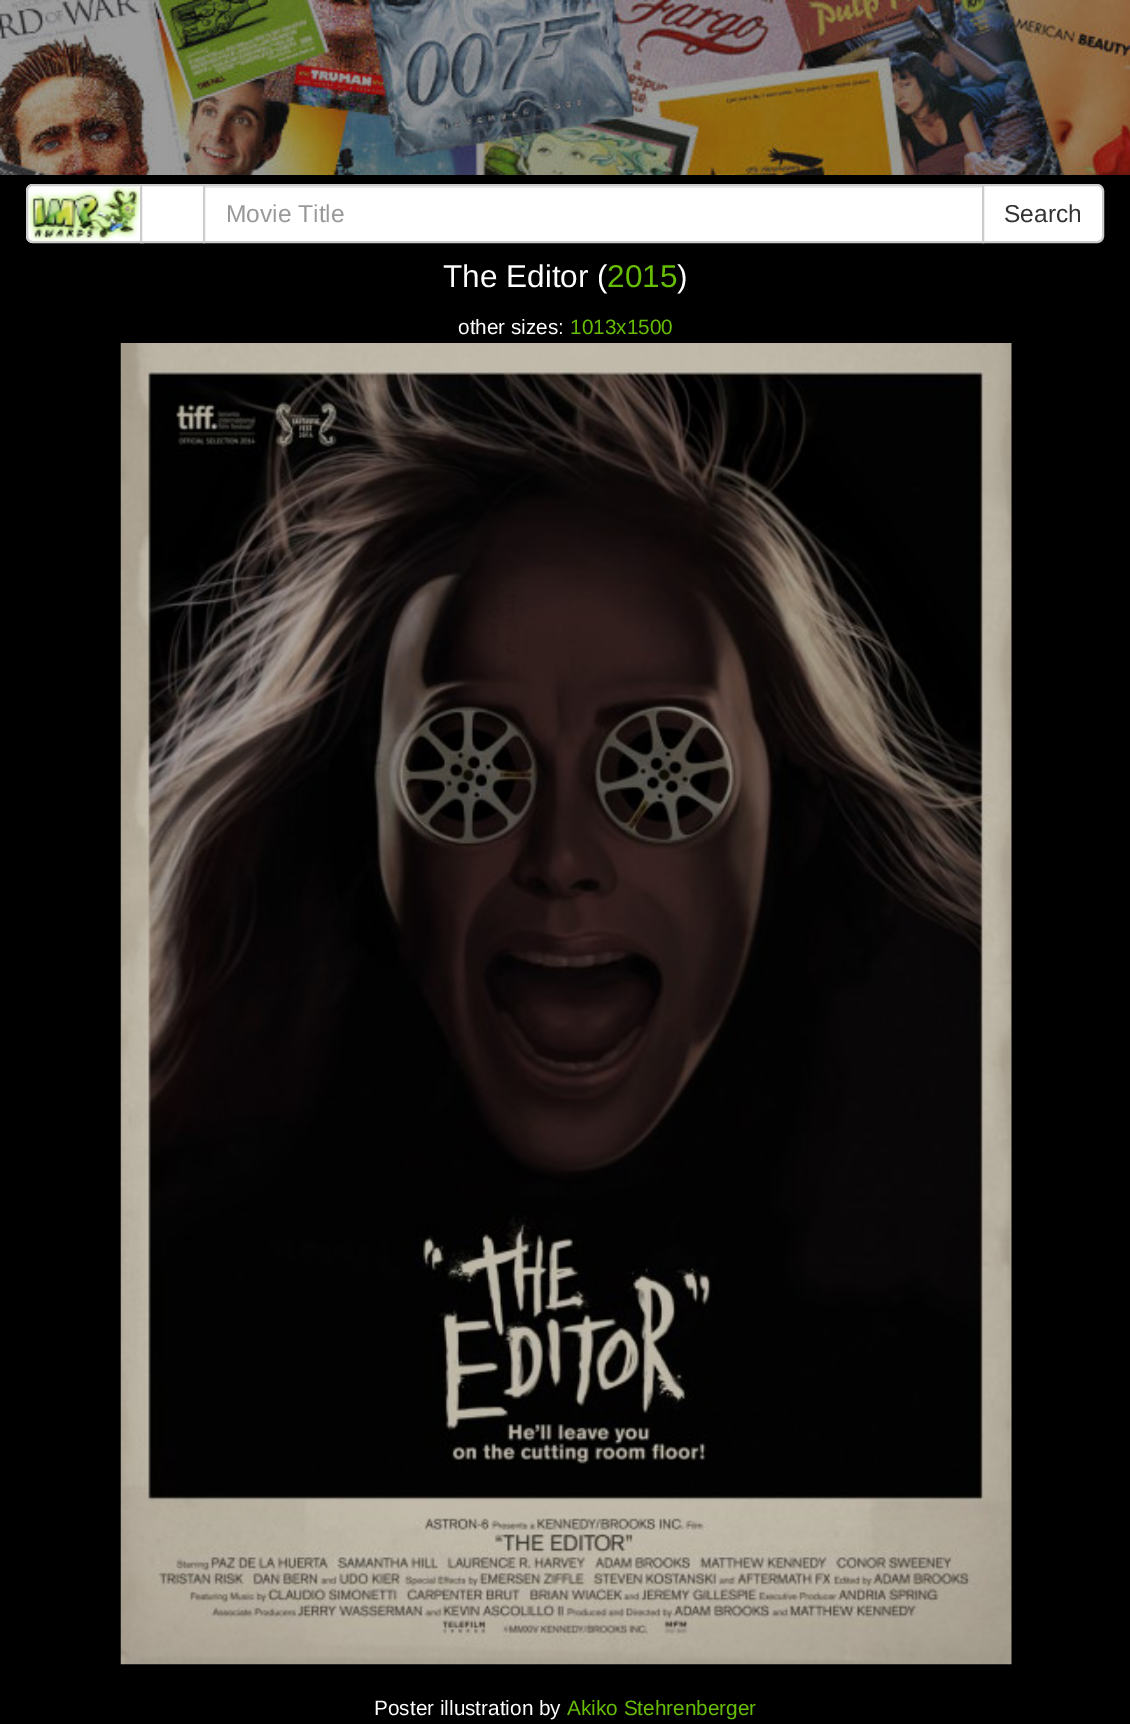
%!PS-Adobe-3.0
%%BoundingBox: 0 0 1130 1724
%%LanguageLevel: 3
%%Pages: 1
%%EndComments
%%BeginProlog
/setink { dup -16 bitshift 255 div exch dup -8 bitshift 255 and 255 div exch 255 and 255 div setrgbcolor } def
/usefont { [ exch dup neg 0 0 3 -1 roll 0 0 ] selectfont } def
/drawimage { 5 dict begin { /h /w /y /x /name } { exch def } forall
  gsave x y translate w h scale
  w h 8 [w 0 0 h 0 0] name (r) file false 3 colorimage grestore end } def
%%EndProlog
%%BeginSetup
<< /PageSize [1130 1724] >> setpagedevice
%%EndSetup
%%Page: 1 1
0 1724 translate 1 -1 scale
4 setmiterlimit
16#000000 setink
0 0 1130 1724 rectfill
(img1.raw) 0 0 1130 175 drawimage
16#FFFFFF setink
33 184 moveto 144 184 lineto 144 243 lineto 33 243 lineto 29 243 26 240 26 236 curveto 26 191 lineto 26 187 29 184 33 184 curveto closepath fill
(img2.raw) 28 186 112 55 drawimage
16#CCCCCC setink
2 setlinewidth
33 185 moveto 143 185 lineto 143 242 lineto 33 242 lineto 29.5 242 27 239.5 27 236 curveto 27 191 lineto 27 187.5 29.5 185 33 185 curveto closepath stroke
16#FFFFFF setink
141 185 moveto 204 185 lineto 204 242 lineto 141 242 lineto closepath gsave fill grestore
16#CCCCCC setink
stroke
16#FFFFFF setink
205 188 777 53 rectfill
16#ECECEC setink
205 186 777 2 rectfill
16#CCCCCC setink
204 185 779 57 rectstroke
/LiberationSans-Regular 24.5 usefont
16#999999 setink
226 222 moveto (Movie Title) show
16#FFFFFF setink
983 185 moveto 1097 185 lineto 1100.5 185 1103 187.5 1103 191 curveto 1103 236 lineto 1103 239.5 1100.5 242 1097 242 curveto 983 242 lineto closepath gsave fill grestore
16#CCCCCC setink
stroke
16#333333 setink
1004 222 moveto (Search) show
/LiberationSans-Regular 31.5 usefont
16#FFFFFF setink
443 287 moveto (The Editor \() show
16#66BD04 setink
607 287 moveto (2015) show
16#FFFFFF setink
677 287 moveto (\)) show
/LiberationSans-Regular 20.75 usefont
458 334 moveto (other sizes:) show
16#66BD04 setink
570 334 moveto (1013x1500) show
(img3.raw) 120 343 892 1322 drawimage
16#FFFFFF setink
374 1715 moveto (Poster illustration by) show
16#66BD04 setink
567 1715 moveto (Akiko Stehrenberger) show
showpage
%%EOF
